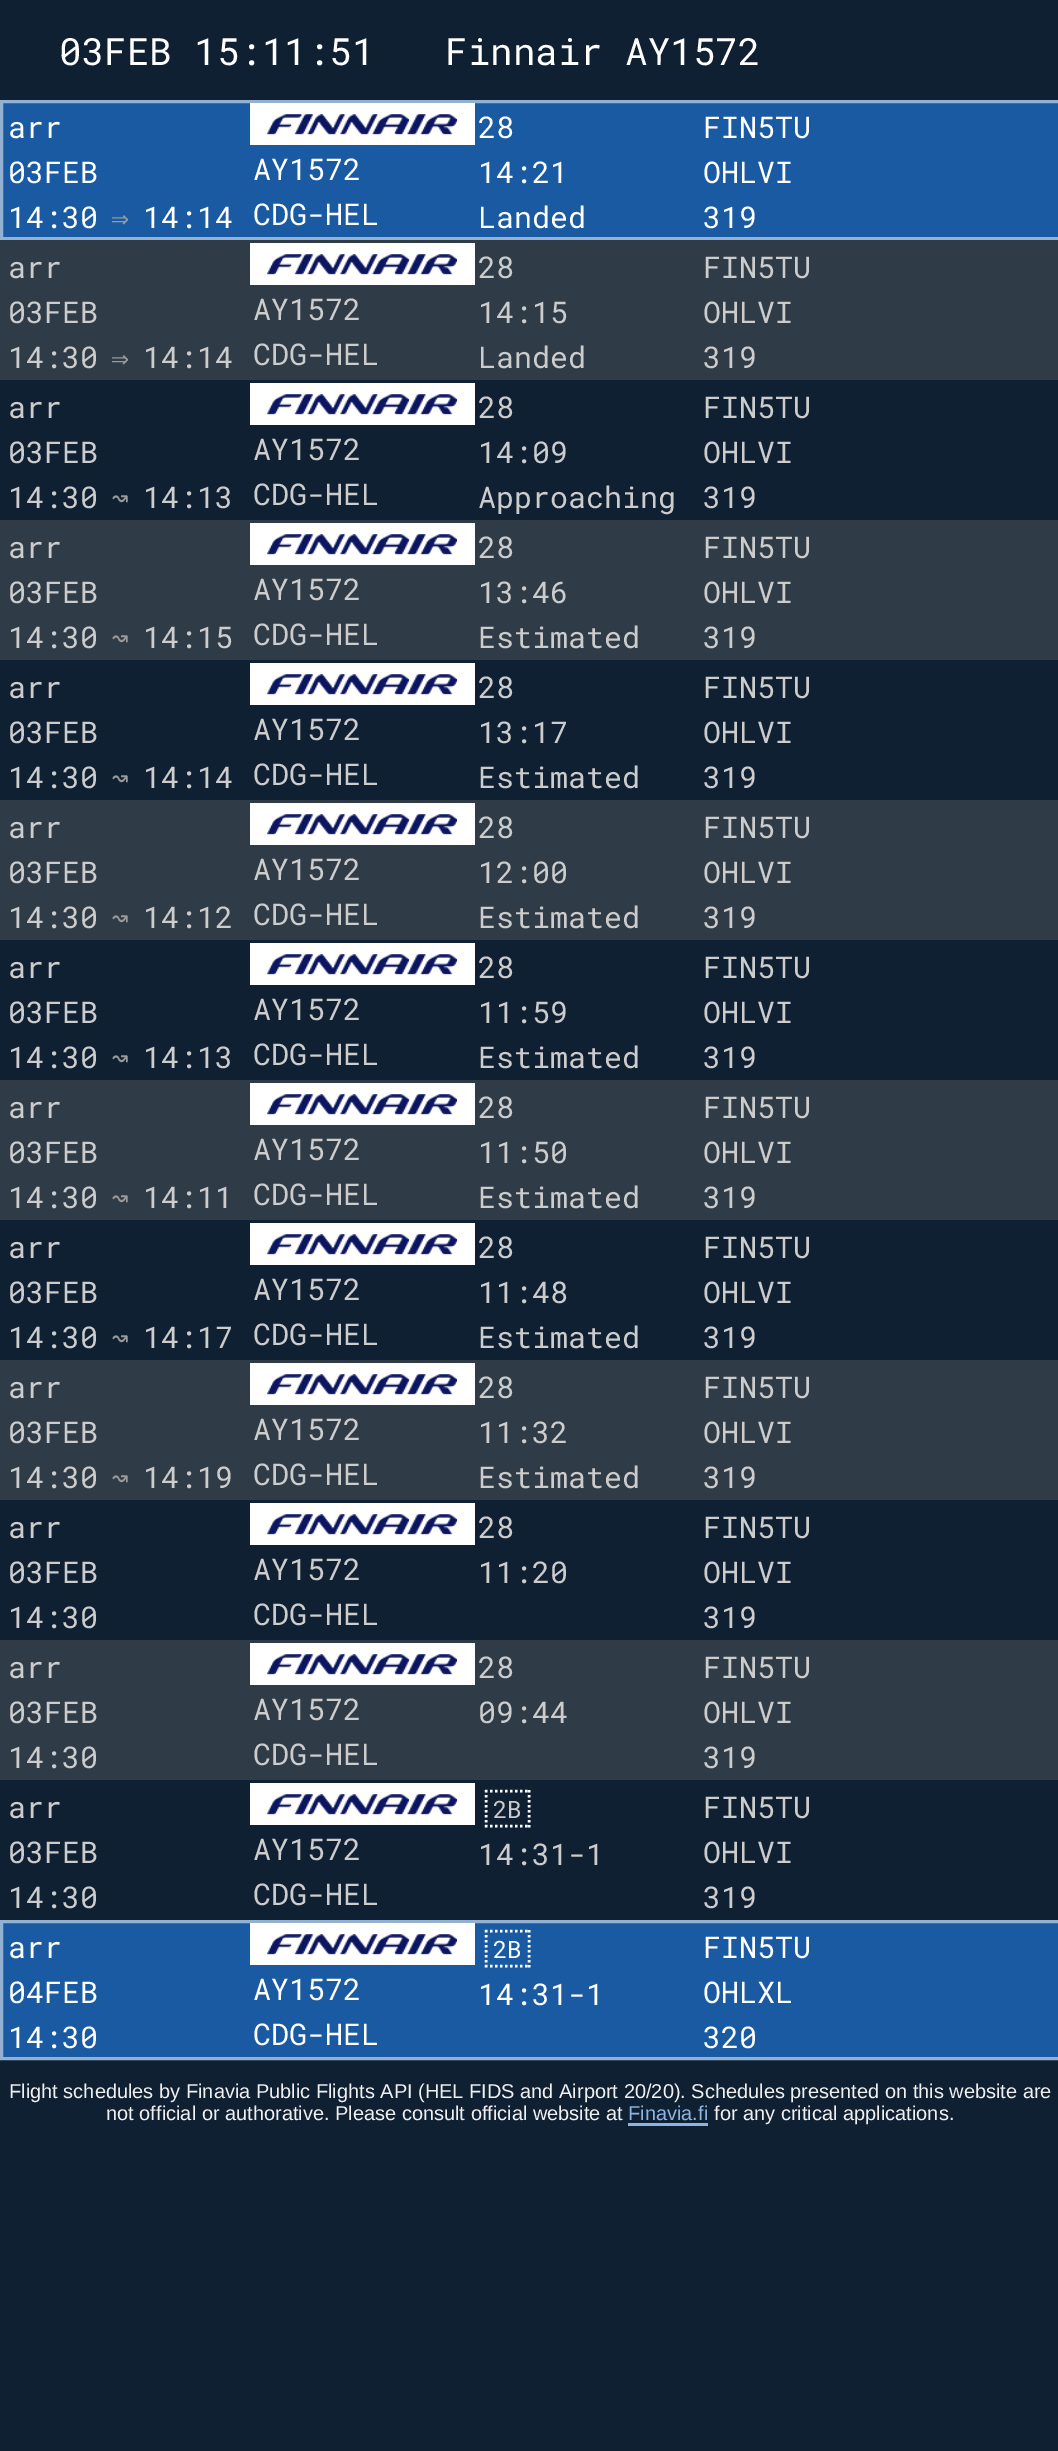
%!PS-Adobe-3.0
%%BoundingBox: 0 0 1058 2451
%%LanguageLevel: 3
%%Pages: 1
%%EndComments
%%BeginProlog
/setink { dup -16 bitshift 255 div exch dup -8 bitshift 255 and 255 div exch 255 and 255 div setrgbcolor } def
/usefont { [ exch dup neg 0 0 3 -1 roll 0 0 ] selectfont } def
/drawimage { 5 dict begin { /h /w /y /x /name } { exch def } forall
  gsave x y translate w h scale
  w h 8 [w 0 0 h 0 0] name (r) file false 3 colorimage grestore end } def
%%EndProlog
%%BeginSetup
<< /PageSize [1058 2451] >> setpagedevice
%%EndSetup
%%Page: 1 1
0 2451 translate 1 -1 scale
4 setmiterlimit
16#0F2033 setink
0 0 1058 2451 rectfill
/RobotoMono-Regular 37.5 usefont
16#FFFFFF setink
59 65 moveto (03FEB 15:11:51) show
445 65 moveto (Finnair AY1572) show
16#195AA2 setink
1.5 101.5 moveto 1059.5 101.5 lineto 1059.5 238.5 lineto 1.5 238.5 lineto closepath gsave fill grestore
16#93B1D3 setink
3 setlinewidth
stroke
/RobotoMono-Regular 30 usefont
16#FFFFFF setink
[
    [(arr) 8 138]
    [(03FEB) 8 183]
    [(14:30) 8 228]
] { aload pop moveto show } forall
/DejaVuSansMono-Regular 30 usefont
16#999999 setink
111 228 moveto (⇒) show
/RobotoMono-Regular 30 usefont
16#FFFFFF setink
143 228 moveto (14:14) show
250 103 225 42 rectfill
(img1.raw) 267 114 191 21 drawimage
[
    [(AY1572) 253 180]
    [(CDG-HEL) 253 225]
    [(28) 478 138]
    [(14:21) 478 183]
    [(Landed) 478 228]
    [(FIN5TU) 703 138]
    [(OHLVI) 703 183]
    [(319) 703 228]
] { aload pop moveto show } forall
16#2F3B47 setink
0 240 1058 140 rectfill
16#CCCCCC setink
[
    [(arr) 8 278]
    [(03FEB) 8 323]
    [(14:30) 8 368]
] { aload pop moveto show } forall
/DejaVuSansMono-Regular 30 usefont
16#999999 setink
111 368 moveto (⇒) show
/RobotoMono-Regular 30 usefont
16#CCCCCC setink
143 368 moveto (14:14) show
16#FFFFFF setink
250 243 225 42 rectfill
(img1.raw) 267 254 191 21 drawimage
16#CCCCCC setink
[
    [(AY1572) 253 320]
    [(CDG-HEL) 253 365]
    [(28) 478 278]
    [(14:15) 478 323]
    [(Landed) 478 368]
    [(FIN5TU) 703 278]
    [(OHLVI) 703 323]
    [(319) 703 368]
    [(arr) 8 418]
    [(03FEB) 8 463]
    [(14:30) 8 508]
] { aload pop moveto show } forall
/DejaVuSansMono-Regular 30 usefont
16#999999 setink
111 508 moveto (↝) show
/RobotoMono-Regular 30 usefont
16#CCCCCC setink
143 508 moveto (14:13) show
16#FFFFFF setink
250 383 225 42 rectfill
(img1.raw) 267 394 191 21 drawimage
16#CCCCCC setink
[
    [(AY1572) 253 460]
    [(CDG-HEL) 253 505]
    [(28) 478 418]
    [(14:09) 478 463]
    [(Approaching) 478 508]
    [(FIN5TU) 703 418]
    [(OHLVI) 703 463]
    [(319) 703 508]
] { aload pop moveto show } forall
16#2F3B47 setink
0 520 1058 140 rectfill
16#CCCCCC setink
[
    [(arr) 8 558]
    [(03FEB) 8 603]
    [(14:30) 8 648]
] { aload pop moveto show } forall
/DejaVuSansMono-Regular 30 usefont
16#999999 setink
111 648 moveto (↝) show
/RobotoMono-Regular 30 usefont
16#CCCCCC setink
143 648 moveto (14:15) show
16#FFFFFF setink
250 523 225 42 rectfill
(img1.raw) 267 534 191 21 drawimage
16#CCCCCC setink
[
    [(AY1572) 253 600]
    [(CDG-HEL) 253 645]
    [(28) 478 558]
    [(13:46) 478 603]
    [(Estimated) 478 648]
    [(FIN5TU) 703 558]
    [(OHLVI) 703 603]
    [(319) 703 648]
    [(arr) 8 698]
    [(03FEB) 8 743]
    [(14:30) 8 788]
] { aload pop moveto show } forall
/DejaVuSansMono-Regular 30 usefont
16#999999 setink
111 788 moveto (↝) show
/RobotoMono-Regular 30 usefont
16#CCCCCC setink
143 788 moveto (14:14) show
16#FFFFFF setink
250 663 225 42 rectfill
(img1.raw) 267 674 191 21 drawimage
16#CCCCCC setink
[
    [(AY1572) 253 740]
    [(CDG-HEL) 253 785]
    [(28) 478 698]
    [(13:17) 478 743]
    [(Estimated) 478 788]
    [(FIN5TU) 703 698]
    [(OHLVI) 703 743]
    [(319) 703 788]
] { aload pop moveto show } forall
16#2F3B47 setink
0 800 1058 140 rectfill
16#CCCCCC setink
[
    [(arr) 8 838]
    [(03FEB) 8 883]
    [(14:30) 8 928]
] { aload pop moveto show } forall
/DejaVuSansMono-Regular 30 usefont
16#999999 setink
111 928 moveto (↝) show
/RobotoMono-Regular 30 usefont
16#CCCCCC setink
143 928 moveto (14:12) show
16#FFFFFF setink
250 803 225 42 rectfill
(img1.raw) 267 814 191 21 drawimage
16#CCCCCC setink
[
    [(AY1572) 253 880]
    [(CDG-HEL) 253 925]
    [(28) 478 838]
    [(12:00) 478 883]
    [(Estimated) 478 928]
    [(FIN5TU) 703 838]
    [(OHLVI) 703 883]
    [(319) 703 928]
    [(arr) 8 978]
    [(03FEB) 8 1023]
    [(14:30) 8 1068]
] { aload pop moveto show } forall
/DejaVuSansMono-Regular 30 usefont
16#999999 setink
111 1068 moveto (↝) show
/RobotoMono-Regular 30 usefont
16#CCCCCC setink
143 1068 moveto (14:13) show
16#FFFFFF setink
250 943 225 42 rectfill
(img1.raw) 267 954 191 21 drawimage
16#CCCCCC setink
[
    [(AY1572) 253 1020]
    [(CDG-HEL) 253 1065]
    [(28) 478 978]
    [(11:59) 478 1023]
    [(Estimated) 478 1068]
    [(FIN5TU) 703 978]
    [(OHLVI) 703 1023]
    [(319) 703 1068]
] { aload pop moveto show } forall
16#2F3B47 setink
0 1080 1058 140 rectfill
16#CCCCCC setink
[
    [(arr) 8 1118]
    [(03FEB) 8 1163]
    [(14:30) 8 1208]
] { aload pop moveto show } forall
/DejaVuSansMono-Regular 30 usefont
16#999999 setink
111 1208 moveto (↝) show
/RobotoMono-Regular 30 usefont
16#CCCCCC setink
143 1208 moveto (14:11) show
16#FFFFFF setink
250 1083 225 42 rectfill
(img1.raw) 267 1094 191 21 drawimage
16#CCCCCC setink
[
    [(AY1572) 253 1160]
    [(CDG-HEL) 253 1205]
    [(28) 478 1118]
    [(11:50) 478 1163]
    [(Estimated) 478 1208]
    [(FIN5TU) 703 1118]
    [(OHLVI) 703 1163]
    [(319) 703 1208]
    [(arr) 8 1258]
    [(03FEB) 8 1303]
    [(14:30) 8 1348]
] { aload pop moveto show } forall
/DejaVuSansMono-Regular 30 usefont
16#999999 setink
111 1348 moveto (↝) show
/RobotoMono-Regular 30 usefont
16#CCCCCC setink
143 1348 moveto (14:17) show
16#FFFFFF setink
250 1223 225 42 rectfill
(img1.raw) 267 1234 191 21 drawimage
16#CCCCCC setink
[
    [(AY1572) 253 1300]
    [(CDG-HEL) 253 1345]
    [(28) 478 1258]
    [(11:48) 478 1303]
    [(Estimated) 478 1348]
    [(FIN5TU) 703 1258]
    [(OHLVI) 703 1303]
    [(319) 703 1348]
] { aload pop moveto show } forall
16#2F3B47 setink
0 1360 1058 140 rectfill
16#CCCCCC setink
[
    [(arr) 8 1398]
    [(03FEB) 8 1443]
    [(14:30) 8 1488]
] { aload pop moveto show } forall
/DejaVuSansMono-Regular 30 usefont
16#999999 setink
111 1488 moveto (↝) show
/RobotoMono-Regular 30 usefont
16#CCCCCC setink
143 1488 moveto (14:19) show
16#FFFFFF setink
250 1363 225 42 rectfill
(img1.raw) 267 1374 191 21 drawimage
16#CCCCCC setink
[
    [(AY1572) 253 1440]
    [(CDG-HEL) 253 1485]
    [(28) 478 1398]
    [(11:32) 478 1443]
    [(Estimated) 478 1488]
    [(FIN5TU) 703 1398]
    [(OHLVI) 703 1443]
    [(319) 703 1488]
    [(arr) 8 1538]
    [(03FEB) 8 1583]
    [(14:30) 8 1628]
] { aload pop moveto show } forall
16#FFFFFF setink
250 1503 225 42 rectfill
(img1.raw) 267 1514 191 21 drawimage
16#CCCCCC setink
[
    [(AY1572) 253 1580]
    [(CDG-HEL) 253 1625]
    [(28) 478 1538]
    [(11:20) 478 1583]
    [(FIN5TU) 703 1538]
    [(OHLVI) 703 1583]
    [(319) 703 1628]
] { aload pop moveto show } forall
16#2F3B47 setink
0 1640 1058 140 rectfill
16#CCCCCC setink
[
    [(arr) 8 1678]
    [(03FEB) 8 1723]
    [(14:30) 8 1768]
] { aload pop moveto show } forall
16#FFFFFF setink
250 1643 225 42 rectfill
(img1.raw) 267 1654 191 21 drawimage
16#CCCCCC setink
[
    [(AY1572) 253 1720]
    [(CDG-HEL) 253 1765]
    [(28) 478 1678]
    [(09:44) 478 1723]
    [(FIN5TU) 703 1678]
    [(OHLVI) 703 1723]
    [(319) 703 1768]
    [(arr) 8 1818]
    [(03FEB) 8 1863]
    [(14:30) 8 1908]
] { aload pop moveto show } forall
16#FFFFFF setink
250 1783 225 42 rectfill
(img1.raw) 267 1794 191 21 drawimage
16#CCCCCC setink
253 1860 moveto (AY1572) show
253 1905 moveto (CDG-HEL) show
16#FFFFFF setink
2.5 setlinewidth
[2.5 2.5] 0 setdash
485 1791 moveto 530 1791 lineto 529 1790 moveto 529 1827.5 lineto 485 1826 moveto 530 1826 lineto 486 1790 moveto 486 1827.5 lineto stroke
/RobotoMono-Regular 24 usefont
16#CCCCCC setink
493 1818 moveto (2B) show
/RobotoMono-Regular 30 usefont
[
    [(14:31-1) 478 1865]
    [(FIN5TU) 703 1818]
    [(OHLVI) 703 1863]
    [(319) 703 1908]
] { aload pop moveto show } forall
16#195AA2 setink
1.5 1921.5 moveto 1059.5 1921.5 lineto 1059.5 2058.5 lineto 1.5 2058.5 lineto closepath gsave fill grestore
16#93B1D3 setink
3 setlinewidth
[] 0 setdash
stroke
16#FFFFFF setink
[
    [(arr) 8 1958]
    [(04FEB) 8 2003]
    [(14:30) 8 2048]
] { aload pop moveto show } forall
250 1923 225 42 rectfill
(img1.raw) 267 1934 191 21 drawimage
253 2000 moveto (AY1572) show
253 2045 moveto (CDG-HEL) show
2.5 setlinewidth
[2.5 2.5] 0 setdash
485 1931 moveto 530 1931 lineto 529 1930 moveto 529 1967.5 lineto 485 1966 moveto 530 1966 lineto 486 1930 moveto 486 1967.5 lineto stroke
/RobotoMono-Regular 24 usefont
493 1958 moveto (2B) show
/RobotoMono-Regular 30 usefont
[
    [(14:31-1) 478 2005]
    [(FIN5TU) 703 1958]
    [(OHLXL) 703 2003]
    [(320) 703 2048]
] { aload pop moveto show } forall
/LiberationSans-Regular 20 usefont
16#F0F0F0 setink
9 2098 moveto (Flight schedules by Finavia Public Flights API \(HEL FIDS and Airport 20/20\). Schedules presented on this website are) show
106 2120 moveto (not official or authorative. Please consult official website at) show
16#8DB5E2 setink
628 2120 moveto (Finavia.fi) show
628 2123 80 3 rectfill
16#F0F0F0 setink
714 2120 moveto (for any critical applications.) show
showpage
%%EOF
